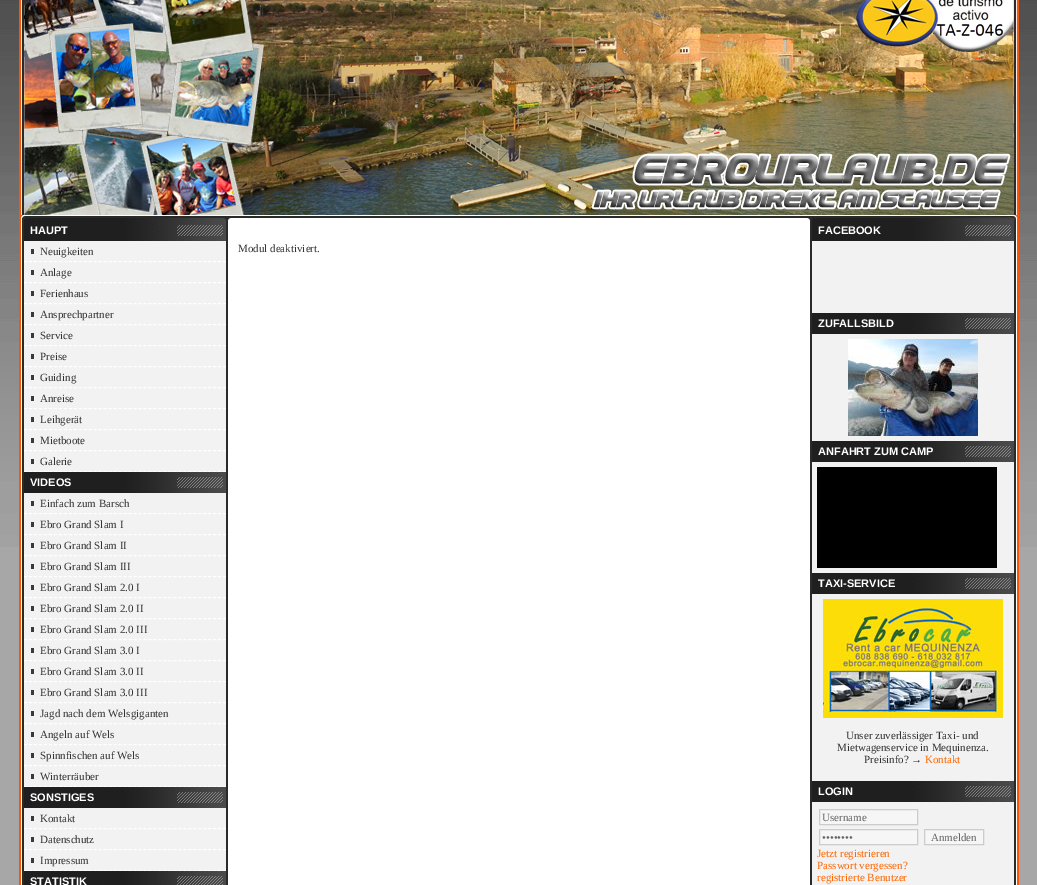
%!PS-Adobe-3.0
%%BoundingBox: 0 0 1037 885
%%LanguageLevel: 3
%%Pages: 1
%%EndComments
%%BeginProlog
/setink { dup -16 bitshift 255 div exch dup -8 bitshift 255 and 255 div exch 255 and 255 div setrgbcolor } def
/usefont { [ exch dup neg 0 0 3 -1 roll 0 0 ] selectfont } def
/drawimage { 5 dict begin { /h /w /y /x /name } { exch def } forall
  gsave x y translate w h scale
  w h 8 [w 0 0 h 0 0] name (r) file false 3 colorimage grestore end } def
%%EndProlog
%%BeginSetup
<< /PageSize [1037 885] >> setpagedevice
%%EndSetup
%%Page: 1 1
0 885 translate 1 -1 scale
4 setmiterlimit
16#A7A7A7 setink
0 0 1037 885 rectfill
(img1.raw) 0 0 1037 547 drawimage
(img2.raw) 19 0 1000 215 drawimage
(img3.raw) 19 215 1000 5 drawimage
(img4.raw) 19 220 5 665 drawimage
16#F2F2F2 setink
24 241 202 630 rectfill
(img5.raw) 24 220 202 21 drawimage
/LiberationSans-Bold 11 usefont
16#FFFFFF setink
30 234 moveto (HAUPT) show
16#3A3A3A setink
31 249 3 5 rectfill
16#FFFFFF setink
[3 1.98] 0 setdash
24 261.5 moveto 226 261.5 lineto stroke
/LiberationSerif-Regular 11 usefont
16#333333 setink
40 255 moveto (Neuigkeiten) show
16#3A3A3A setink
31 270 3 5 rectfill
16#FFFFFF setink
24 282.5 moveto 226 282.5 lineto stroke
16#333333 setink
40 276 moveto (Anlage) show
16#3A3A3A setink
31 291 3 5 rectfill
16#FFFFFF setink
24 303.5 moveto 226 303.5 lineto stroke
16#333333 setink
40 297 moveto (Ferienhaus) show
16#3A3A3A setink
31 312 3 5 rectfill
16#FFFFFF setink
24 324.5 moveto 226 324.5 lineto stroke
16#333333 setink
40 318 moveto (Ansprechpartner) show
16#3A3A3A setink
31 333 3 5 rectfill
16#FFFFFF setink
24 345.5 moveto 226 345.5 lineto stroke
16#333333 setink
40 339 moveto (Service) show
16#3A3A3A setink
31 354 3 5 rectfill
16#FFFFFF setink
24 366.5 moveto 226 366.5 lineto stroke
16#333333 setink
40 360 moveto (Preise) show
16#3A3A3A setink
31 375 3 5 rectfill
16#FFFFFF setink
24 387.5 moveto 226 387.5 lineto stroke
16#333333 setink
40 381 moveto (Guiding) show
16#3A3A3A setink
31 396 3 5 rectfill
16#FFFFFF setink
24 408.5 moveto 226 408.5 lineto stroke
16#333333 setink
40 402 moveto (Anreise) show
16#3A3A3A setink
31 417 3 5 rectfill
16#FFFFFF setink
24 429.5 moveto 226 429.5 lineto stroke
16#333333 setink
40 423 moveto (Leihgerät) show
16#3A3A3A setink
31 438 3 5 rectfill
16#FFFFFF setink
24 450.5 moveto 226 450.5 lineto stroke
16#333333 setink
40 444 moveto (Mietboote) show
16#3A3A3A setink
31 459 3 5 rectfill
16#FFFFFF setink
24 471.5 moveto 226 471.5 lineto stroke
16#333333 setink
40 465 moveto (Galerie) show
(img5.raw) 24 472 202 21 drawimage
/LiberationSans-Bold 11 usefont
16#FFFFFF setink
30 486 moveto (VIDEOS) show
16#3A3A3A setink
31 501 3 5 rectfill
16#FFFFFF setink
24 513.5 moveto 226 513.5 lineto stroke
/LiberationSerif-Regular 11 usefont
16#333333 setink
40 507 moveto (Einfach zum Barsch) show
16#3A3A3A setink
31 522 3 5 rectfill
16#FFFFFF setink
24 534.5 moveto 226 534.5 lineto stroke
16#333333 setink
40 528 moveto (Ebro Grand Slam I) show
16#3A3A3A setink
31 543 3 5 rectfill
16#FFFFFF setink
24 555.5 moveto 226 555.5 lineto stroke
16#333333 setink
40 549 moveto (Ebro Grand Slam II) show
16#3A3A3A setink
31 564 3 5 rectfill
16#FFFFFF setink
24 576.5 moveto 226 576.5 lineto stroke
16#333333 setink
40 570 moveto (Ebro Grand Slam III) show
16#3A3A3A setink
31 585 3 5 rectfill
16#FFFFFF setink
24 597.5 moveto 226 597.5 lineto stroke
16#333333 setink
40 591 moveto (Ebro Grand Slam 2.0 I) show
16#3A3A3A setink
31 606 3 5 rectfill
16#FFFFFF setink
24 618.5 moveto 226 618.5 lineto stroke
16#333333 setink
40 612 moveto (Ebro Grand Slam 2.0 II) show
16#3A3A3A setink
31 627 3 5 rectfill
16#FFFFFF setink
24 639.5 moveto 226 639.5 lineto stroke
16#333333 setink
40 633 moveto (Ebro Grand Slam 2.0 III) show
16#3A3A3A setink
31 648 3 5 rectfill
16#FFFFFF setink
24 660.5 moveto 226 660.5 lineto stroke
16#333333 setink
40 654 moveto (Ebro Grand Slam 3.0 I) show
16#3A3A3A setink
31 669 3 5 rectfill
16#FFFFFF setink
24 681.5 moveto 226 681.5 lineto stroke
16#333333 setink
40 675 moveto (Ebro Grand Slam 3.0 II) show
16#3A3A3A setink
31 690 3 5 rectfill
16#FFFFFF setink
24 702.5 moveto 226 702.5 lineto stroke
16#333333 setink
40 696 moveto (Ebro Grand Slam 3.0 III) show
16#3A3A3A setink
31 711 3 5 rectfill
16#FFFFFF setink
24 723.5 moveto 226 723.5 lineto stroke
16#333333 setink
40 717 moveto (Jagd nach dem Welsgiganten) show
16#3A3A3A setink
31 732 3 5 rectfill
16#FFFFFF setink
24 744.5 moveto 226 744.5 lineto stroke
16#333333 setink
40 738 moveto (Angeln auf Wels) show
16#3A3A3A setink
31 753 3 5 rectfill
16#FFFFFF setink
24 765.5 moveto 226 765.5 lineto stroke
16#333333 setink
40 759 moveto (Spinnfischen auf Wels) show
16#3A3A3A setink
31 774 3 5 rectfill
16#FFFFFF setink
24 786.5 moveto 226 786.5 lineto stroke
16#333333 setink
40 780 moveto (Winterräuber) show
(img5.raw) 24 787 202 21 drawimage
/LiberationSans-Bold 11 usefont
16#FFFFFF setink
30 801 moveto (SONSTIGES) show
16#3A3A3A setink
31 816 3 5 rectfill
16#FFFFFF setink
24 828.5 moveto 226 828.5 lineto stroke
/LiberationSerif-Regular 11 usefont
16#333333 setink
40 822 moveto (Kontakt) show
16#3A3A3A setink
31 837 3 5 rectfill
16#FFFFFF setink
24 849.5 moveto 226 849.5 lineto stroke
16#333333 setink
40 843 moveto (Datenschutz) show
16#3A3A3A setink
31 858 3 5 rectfill
16#FFFFFF setink
24 870.5 moveto 226 870.5 lineto stroke
16#333333 setink
40 864 moveto (Impressum) show
(img6.raw) 24 871 202 14 drawimage
/LiberationSans-Bold 11 usefont
16#FFFFFF setink
30 885 moveto (STATISTIK) show
16#2A2A2A setink
226 220 2 665 rectfill
16#FFFFFF setink
228 220 582 665 rectfill
/LiberationSerif-Regular 11 usefont
16#333333 setink
238 252 moveto (Modul deaktiviert.) show
16#2A2A2A setink
810 220 2 665 rectfill
16#F2F2F2 setink
812 241 202 644 rectfill
(img5.raw) 812 220 202 21 drawimage
/LiberationSans-Bold 11 usefont
16#FFFFFF setink
818 234 moveto (FACEBOOK) show
(img5.raw) 812 313 202 21 drawimage
818 327 moveto (ZUFALLSBILD) show
(img7.raw) 848 339 130 97 drawimage
(img5.raw) 812 441 202 21 drawimage
818 455 moveto (ANFAHRT ZUM CAMP) show
16#000000 setink
817 467 180 101 rectfill
(img5.raw) 812 573 202 21 drawimage
16#FFFFFF setink
818 587 moveto (TAXI-SERVICE) show
(img8.raw) 823 599 180 119 drawimage
/LiberationSerif-Regular 11 usefont
16#333333 setink
[
    [(Unser zuverlässiger Taxi- und) 846 739]
    [(Mietwagenservice in Mequinenza.) 837 751]
    [(Preisinfo? →) 864 763]
] { aload pop moveto show } forall
16#FF6600 setink
925 763 moveto (Kontakt) show
(img5.raw) 812 781 202 21 drawimage
/LiberationSans-Bold 11 usefont
16#FFFFFF setink
818 795 moveto (LOGIN) show
16#F6F6F6 setink
819.5 809.5 moveto 917.5 809.5 lineto 917.5 824.5 lineto 819.5 824.5 lineto closepath gsave fill grestore
16#CCCCCC setink
[] 0 setdash
stroke
/LiberationSerif-Regular 11 usefont
16#666666 setink
822 821 moveto (Username) show
16#F6F6F6 setink
819.5 829.5 moveto 917.5 829.5 lineto 917.5 844.5 lineto 819.5 844.5 lineto closepath gsave fill grestore
16#CCCCCC setink
stroke
16#666666 setink
822 841 moveto (••••••••) show
16#F6F6F6 setink
924.5 829.5 moveto 983.5 829.5 lineto 983.5 844.5 lineto 924.5 844.5 lineto closepath gsave fill grestore
16#CCCCCC setink
stroke
16#666666 setink
931 841 moveto (Anmelden) show
16#FF6600 setink
[
    [(Jetzt registrieren) 817 857]
    [(Passwort vergessen?) 817 869]
    [(registrierte Benutzer) 817 881]
] { aload pop moveto show } forall
(img9.raw) 1014 220 5 665 drawimage
showpage
%%EOF
